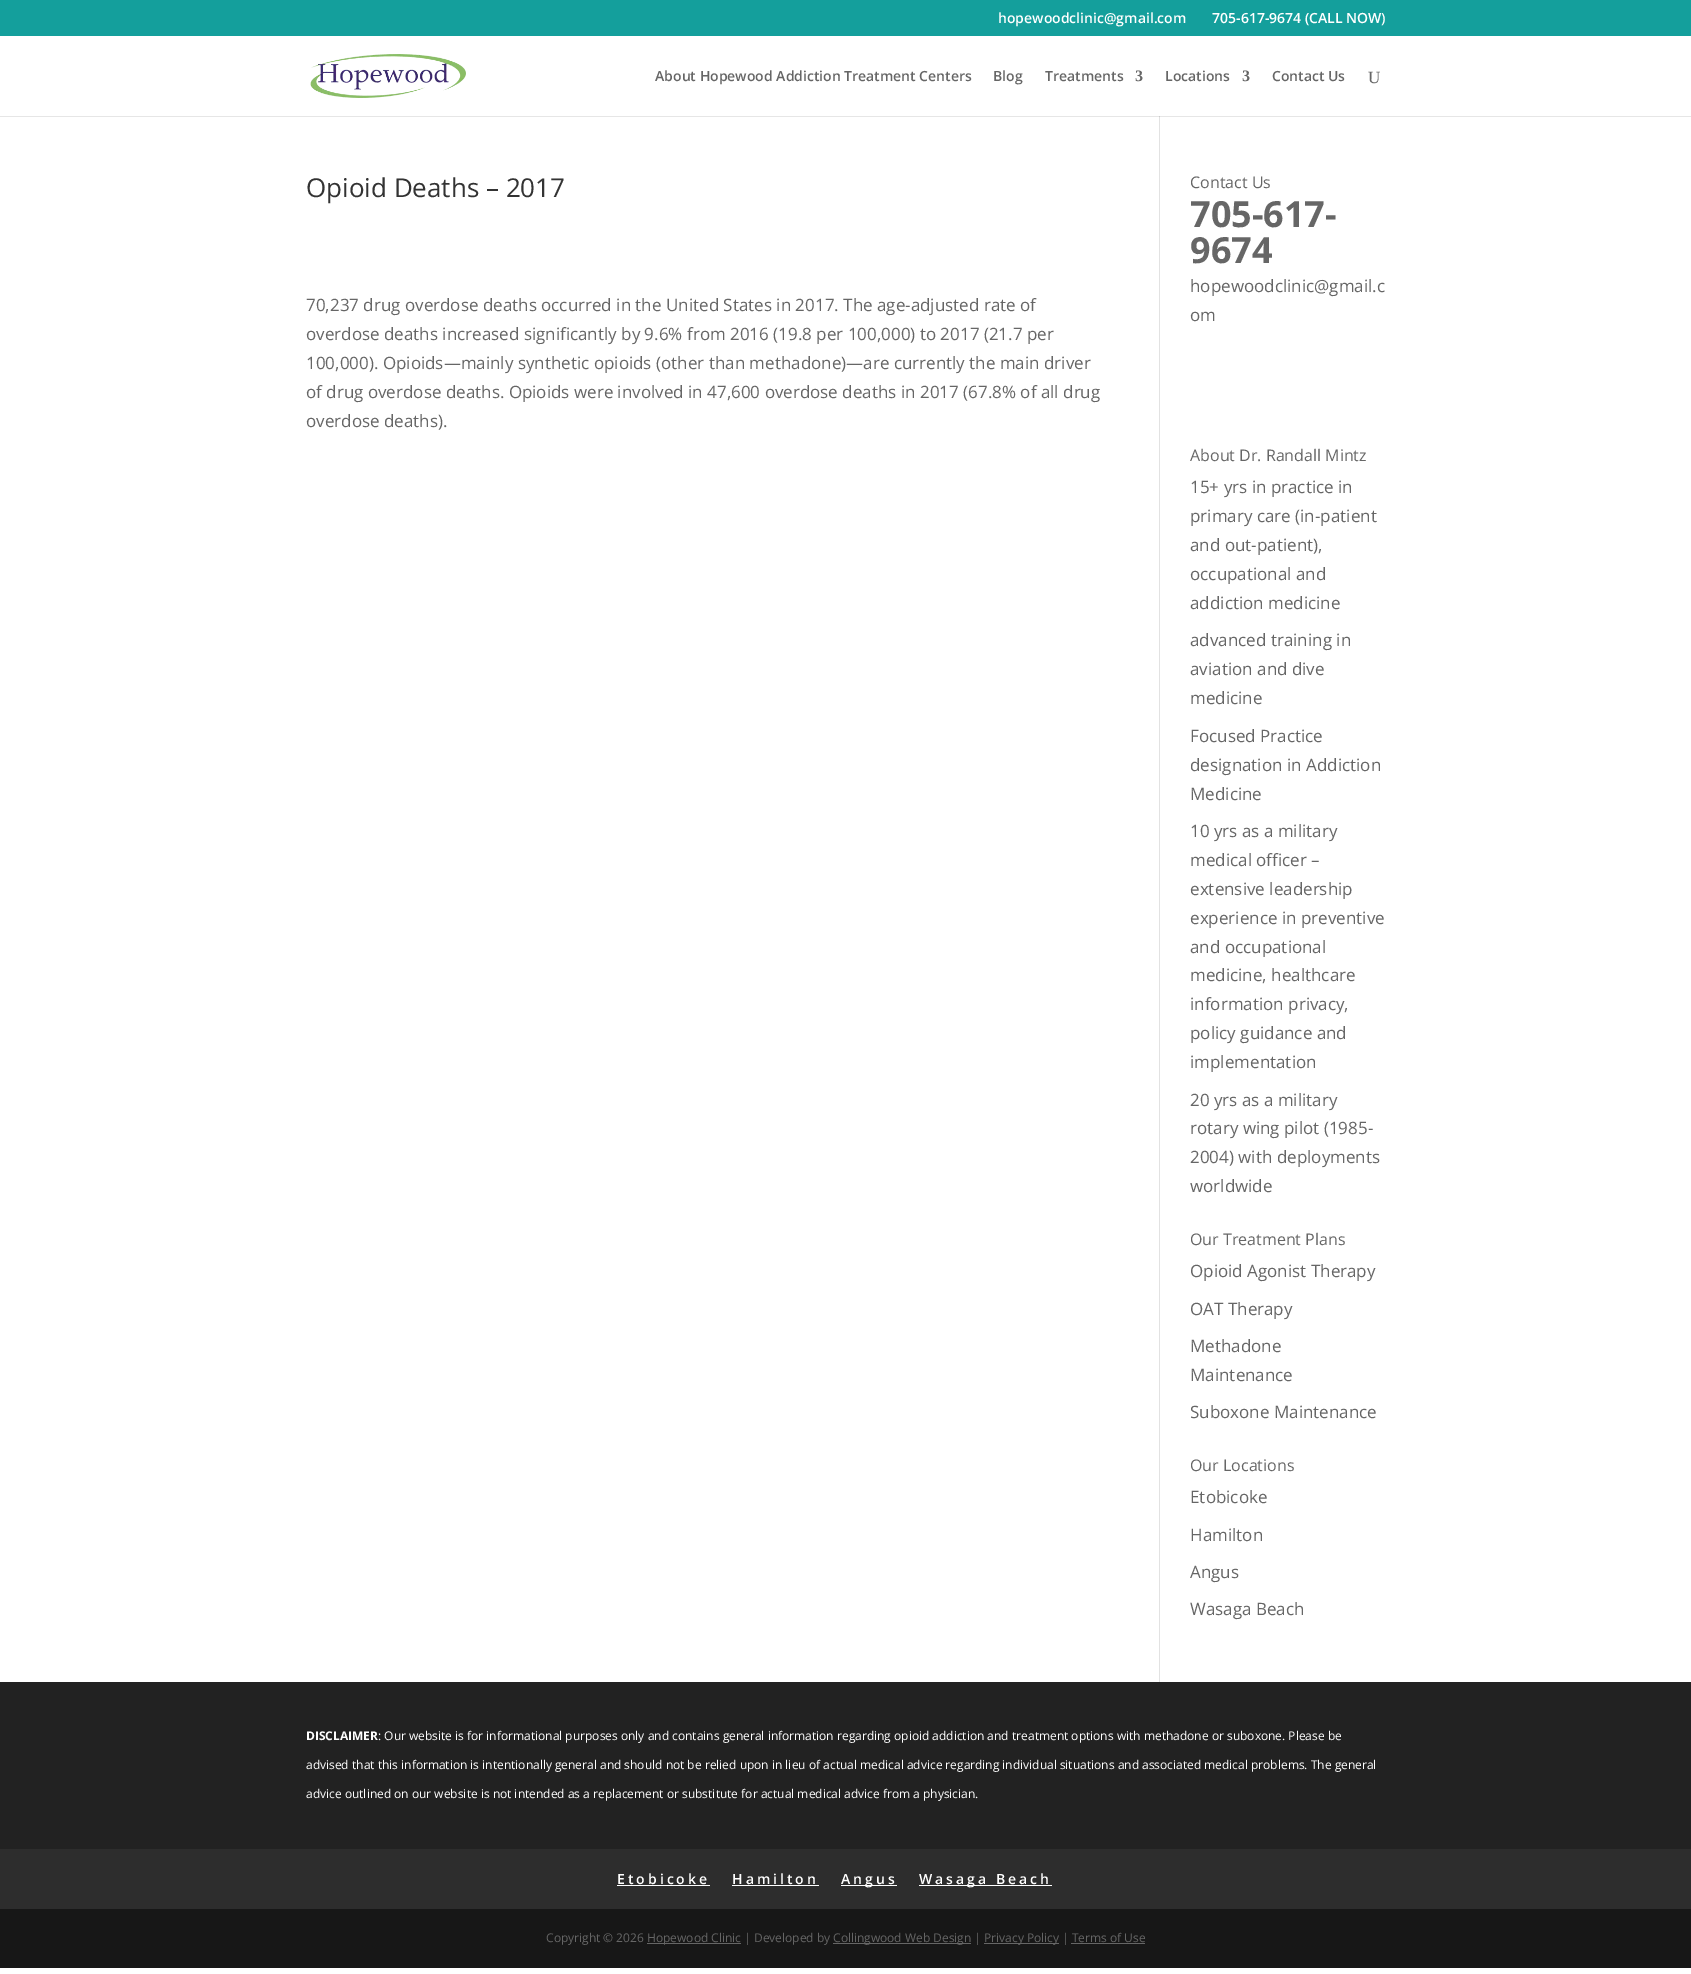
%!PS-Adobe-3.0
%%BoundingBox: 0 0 1691 1974
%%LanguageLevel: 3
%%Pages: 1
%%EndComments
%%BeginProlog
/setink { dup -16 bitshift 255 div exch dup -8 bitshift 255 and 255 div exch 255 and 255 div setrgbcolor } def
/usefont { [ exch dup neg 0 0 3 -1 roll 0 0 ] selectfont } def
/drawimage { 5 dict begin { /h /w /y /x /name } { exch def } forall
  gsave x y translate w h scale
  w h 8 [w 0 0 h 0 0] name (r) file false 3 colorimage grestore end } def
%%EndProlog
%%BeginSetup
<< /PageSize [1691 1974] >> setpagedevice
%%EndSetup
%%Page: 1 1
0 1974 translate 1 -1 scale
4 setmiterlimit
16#FFFFFF setink
0 0 1691 1974 rectfill
16#E6E6E6 setink
0 116 1691 1 rectfill
16#149F9C setink
0 0 1691 36 rectfill
/OpenSans-SemiBold 14 usefont
16#FFFFFF setink
998 23 moveto (hopewoodclinic@gmail.com) show
1212 23 moveto (705-617-9674 \(CALL NOW\)) show
(img1.raw) 310 54 156 44 drawimage
16#666666 setink
[
    [(About Hopewood Addiction Treatment Centers) 655 81]
    [(Blog) 993 81]
    [(Treatments) 1045 81]
] { aload pop moveto show } forall
/LiberationSerif-Bold 16 usefont
1135 81 moveto (3) show
/OpenSans-SemiBold 14 usefont
1165 81 moveto (Locations) show
/LiberationSerif-Bold 16 usefont
1242 81 moveto (3) show
/OpenSans-SemiBold 14 usefont
1272 81 moveto (Contact Us) show
/LiberationSerif-Regular 17 usefont
1368 83 moveto (U) show
16#E2E2E2 setink
1159 116 1 1566 rectfill
16#CBCBCB setink
1159 116 1 1 rectfill
/OpenSans-Regular 26 usefont
16#333333 setink
306 197 moveto (Opioid Deaths – 2017) show
/OpenSans-Regular 17 usefont
16#666666 setink
[
    [(70,237 drug overdose deaths occurred in the United States in 2017. The age-adjusted rate of) 306 311]
    [(overdose deaths increased significantly by 9.6% from 2016 \(19.8 per 100,000\) to 2017 \(21.7 per) 306 340]
    [(100,000\). Opioids—mainly synthetic opioids \(other than methadone\)—are currently the main driver) 306 369]
    [(of drug overdose deaths. Opioids were involved in 47,600 overdose deaths in 2017 \(67.8% of all drug) 306 398]
    [(overdose deaths\).) 306 427]
] { aload pop moveto show } forall
/OpenSans-Regular 16 usefont
1190 188 moveto (Contact Us) show
/OpenSans-Bold 36 usefont
1190 227 moveto (705-617-) show
1190 263 moveto (9674) show
/OpenSans-Regular 17 usefont
1190 292 moveto (hopewoodclinic@gmail.c) show
1190 321 moveto (om) show
/OpenSans-Regular 16 usefont
1190 461 moveto (About Dr. Randall Mintz) show
/OpenSans-Regular 17 usefont
[
    [(15+ yrs in practice in) 1190 493]
    [(primary care \(in-patient) 1190 522]
    [(and out-patient\),) 1190 551]
    [(occupational and) 1190 580]
    [(addiction medicine) 1190 609]
    [(advanced training in) 1190 646]
    [(aviation and dive) 1190 675]
    [(medicine) 1190 704]
    [(Focused Practice) 1190 742]
    [(designation in Addiction) 1190 771]
    [(Medicine) 1190 800]
    [(10 yrs as a military) 1190 837]
    [(medical officer –) 1190 866]
    [(extensive leadership) 1190 895]
    [(experience in preventive) 1190 924]
    [(and occupational) 1190 953]
    [(medicine, healthcare) 1190 981]
    [(information privacy,) 1190 1010]
    [(policy guidance and) 1190 1039]
    [(implementation) 1190 1068]
    [(20 yrs as a military) 1190 1106]
    [(rotary wing pilot \(1985-) 1190 1134]
    [(2004\) with deployments) 1190 1163]
    [(worldwide) 1190 1192]
] { aload pop moveto show } forall
/OpenSans-Regular 16 usefont
1190 1245 moveto (Our Treatment Plans) show
/OpenSans-Regular 17 usefont
[
    [(Opioid Agonist Therapy) 1190 1277]
    [(OAT Therapy) 1190 1315]
    [(Methadone) 1190 1352]
    [(Maintenance) 1190 1381]
    [(Suboxone Maintenance) 1190 1418]
] { aload pop moveto show } forall
/OpenSans-Regular 16 usefont
1190 1471 moveto (Our Locations) show
/OpenSans-Regular 17 usefont
[
    [(Etobicoke) 1190 1503]
    [(Hamilton) 1190 1541]
    [(Angus) 1190 1578]
    [(Wasaga Beach) 1190 1615]
] { aload pop moveto show } forall
16#222222 setink
0 1682 1691 167 rectfill
/OpenSans-Bold 12 usefont
16#FFFFFF setink
306 1740 moveto (DISCLAIMER) show
/OpenSans-Regular 12 usefont
[
    [(: Our website is for informational purposes only and contains general information regarding opioid addiction and treatment options with methadone or suboxone. Please be) 378 1740]
    [(advised that this information is intentionally general and should not be relied upon in lieu of actual medical advice regarding individual situations and associated medical problems. The general) 306 1769]
    [(advice outlined on our website is not intended as a replacement or substitute for actual medical advice from a physician.) 306 1798]
] { aload pop moveto show } forall
16#2D2D2D setink
0 1849 1691 60 rectfill
/OpenSans-SemiBold 14 usefont
16#FFFFFF setink
617 1884 moveto 3 0 (Etobicoke) ashow
617 1885 93 1 rectfill
732 1884 moveto 3 0 (Hamilton) ashow
732 1885 87 1 rectfill
841 1885 56 1 rectfill
841 1884 moveto 3 0 (Angus) ashow
919 1885 133 1 rectfill
919 1884 moveto 3 0 (Wasaga Beach) ashow
16#171717 setink
0 1909 1691 59 rectfill
/OpenSans-Regular 12 usefont
16#666666 setink
546 1942 moveto (Copyright © 2026) show
647 1943 94 1 rectfill
647 1942 moveto (Hopewood Clinic | Developed by) show
833 1943 138 1 rectfill
833 1942 moveto (Collingwood Web Design |) show
984 1943 75 1 rectfill
984 1942 moveto (Privacy Policy | Terms of Use) show
1071 1943 74 1 rectfill
showpage
%%EOF
